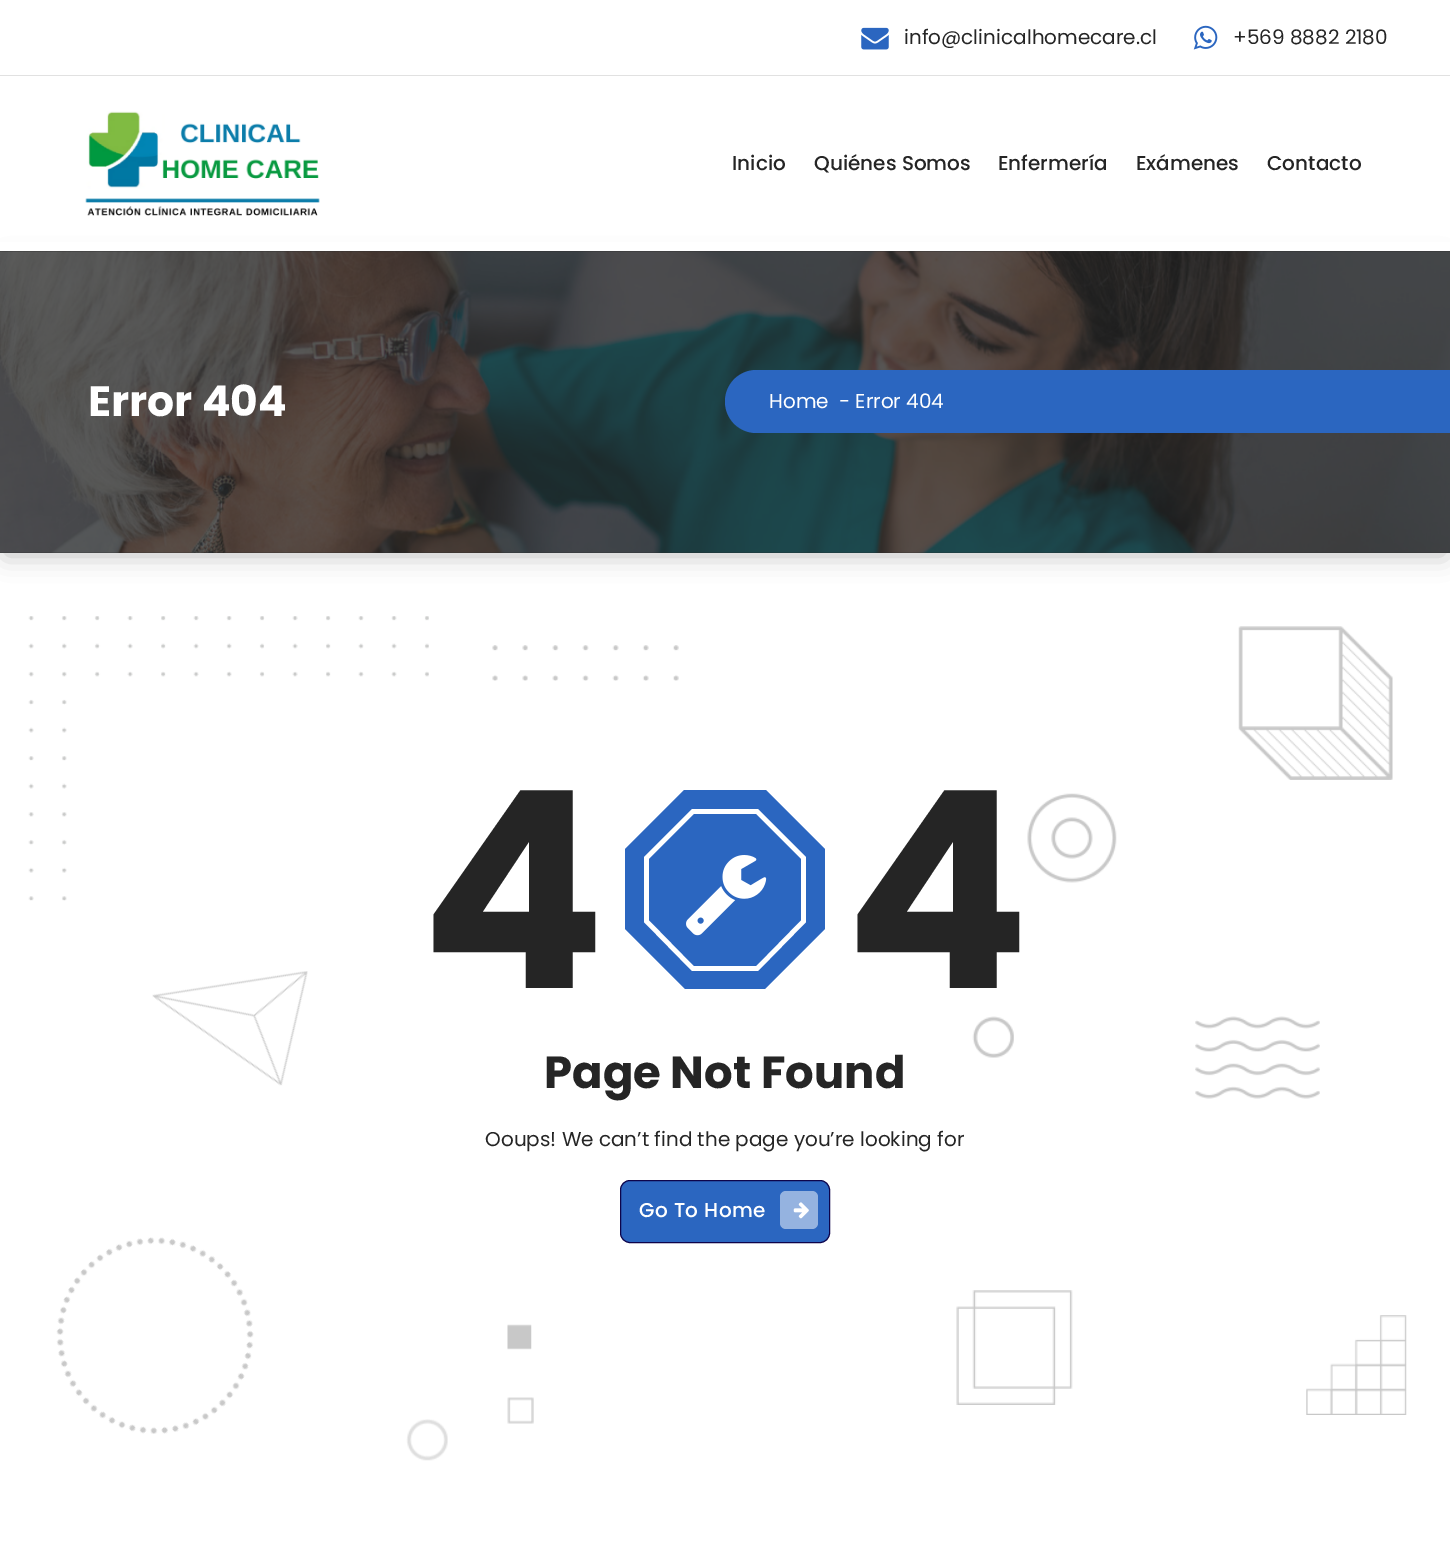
%!PS-Adobe-3.0
%%BoundingBox: 0 0 1450 1541
%%LanguageLevel: 3
%%Pages: 1
%%EndComments
%%BeginProlog
/setink { dup -16 bitshift 255 div exch dup -8 bitshift 255 and 255 div exch 255 and 255 div setrgbcolor } def
/usefont { [ exch dup neg 0 0 3 -1 roll 0 0 ] selectfont } def
/setalpha { dup .setfillconstantalpha .setstrokeconstantalpha } def
/rrect { 5 dict begin { /r /h /w /y /x } { exch def } forall
  x r add y moveto x w add y 2 copy h add r arct x w add y h add x 1 index r arct
  x y h add x y r arct x y 2 copy exch w add exch r arct closepath end } def
/softshadow { 12 dict begin { /a /b /q /h /w /y /x } { exch def } forall gsave /was 0 def
  9 -2 -9 { dup b mul 4 div /e exch def 1 sub .425 mul 2.718 exch exp 1 add a .99 .min exch div /now exch def
    1 1 now sub 1 was sub div sub setalpha /was now def
    w h .min e 2 mul add 0 gt { x e sub y e sub w e 2 mul add h e 2 mul add
      q e add b .6 mul add w h .min 2 div e add .min 0 .max rrect fill } if } for grestore end } def
/drawimage { 5 dict begin { /h /w /y /x /name } { exch def } forall
  gsave x y translate w h scale
  w h 8 [w 0 0 h 0 0] name (r) file false 3 colorimage grestore end } def
%%EndProlog
%%BeginSetup
<< /PageSize [1450 1541] /PageUsesTransparency true >> setpagedevice
%%EndSetup
%%Page: 1 1
0 .pushpdf14devicefilter
0 1541 translate 1 -1 scale
4 setmiterlimit
16#FFFFFF setink
0 0 1450 1541 rectfill
16#404040 setink
0 251 1450 302 rectfill
16#000000 setink
5 264 1440 291 0 12.5 0.25 softshadow
16#FFFFFF setink
0 242 1450 9 rectfill
16#E1E1E1 setink
0 75 1450 1 rectfill
(img1.raw) 861 27 28 23 drawimage
/Poppins-Regular 20 usefont
16#252525 setink
904 44 moveto (info@clinicalhomecare.cl) show
(img2.raw) 1193 25 25 25 drawimage
1233 44 moveto (+569 8882 2180) show
(img3.raw) 85 111 235 105 drawimage
/Poppins-Medium 20 usefont
[
    [(Inicio) 732 170]
    [(Quiénes Somos) 814 170]
    [(Enfermería) 998 170]
    [(Exámenes) 1136 170]
    [(Contacto) 1267 170]
] { aload pop moveto show } forall
(img4.raw) 0 251 1450 302 drawimage
0.75 setalpha
0 251 1450 302 rectfill
/Poppins-Bold 42.5 usefont
1 setalpha
16#FFFFFF setink
88 416 moveto (Error 404) show
16#2B66C0 setink
756.5 370 moveto 1450 370 lineto 1450 433 lineto 756.5 433 lineto 739 433 725 419 725 401.5 curveto 725 384 739 370 756.5 370 curveto closepath fill
/Poppins-Regular 20 usefont
16#FFFFFF setink
769 408 moveto (Home) show
839 408 moveto (- Error 404) show
(img5.raw) 28 616 401 285 drawimage
(img6.raw) 492 645 187 36 drawimage
(img7.raw) 1238 626 155 154 drawimage
/Poppins-Bold 275 usefont
16#252525 setink
420 988 moveto (4) show
16#2B66C0 setink
625 849 moveto 625 929 lineto 685 989 lineto 765 989 lineto 825 929 lineto 825 849 lineto 766 790 lineto 684 790 lineto closepath fill
16#FFFFFF setink
644 857 moveto 692 809 lineto 758 809 lineto 806 857 lineto 806 922 lineto 758 971 lineto 692 971 lineto 644 922 lineto closepath fill
16#2B66C0 setink
649 859 moveto 694 814 lineto 756 814 lineto 801 859 lineto 801 920 lineto 756 966 lineto 694 966 lineto 649 920 lineto closepath fill
(img8.raw) 686 855 81 81 drawimage
16#252525 setink
844 988 moveto (4) show
/Poppins-Bold 45 usefont
544 1088 moveto (Page Not Found) show
/Poppins-Regular 20 usefont
485 1146 moveto (Ooups! We can’t find the page you’re looking for) show
16#2B66C0 setink
620.5 1180.5 209 62 9.5 rrect gsave fill grestore
16#0E044B setink
stroke
/Poppins-Medium 20 usefont
16#FFFFFF setink
639 1217 moveto 0.4 0 (Go To Home) ashow
16#95B3E0 setink
780 1191 38 38 6 rrect fill
(img9.raw) 793 1202 16 17 drawimage
(img10.raw) 1027 793 90 90 drawimage
(img11.raw) 152 971 156 115 drawimage
(img12.raw) 972 1016 42 42 drawimage
(img13.raw) 1195 1016 125 83 drawimage
(img14.raw) 56 1237 198 197 drawimage
(img15.raw) 507 1324 25 26 drawimage
(img16.raw) 956 1290 117 115 drawimage
(img17.raw) 1306 1315 101 100 drawimage
(img18.raw) 507 1397 27 27 drawimage
(img19.raw) 406 1419 42 42 drawimage
.poppdf14devicefilter showpage
%%EOF
